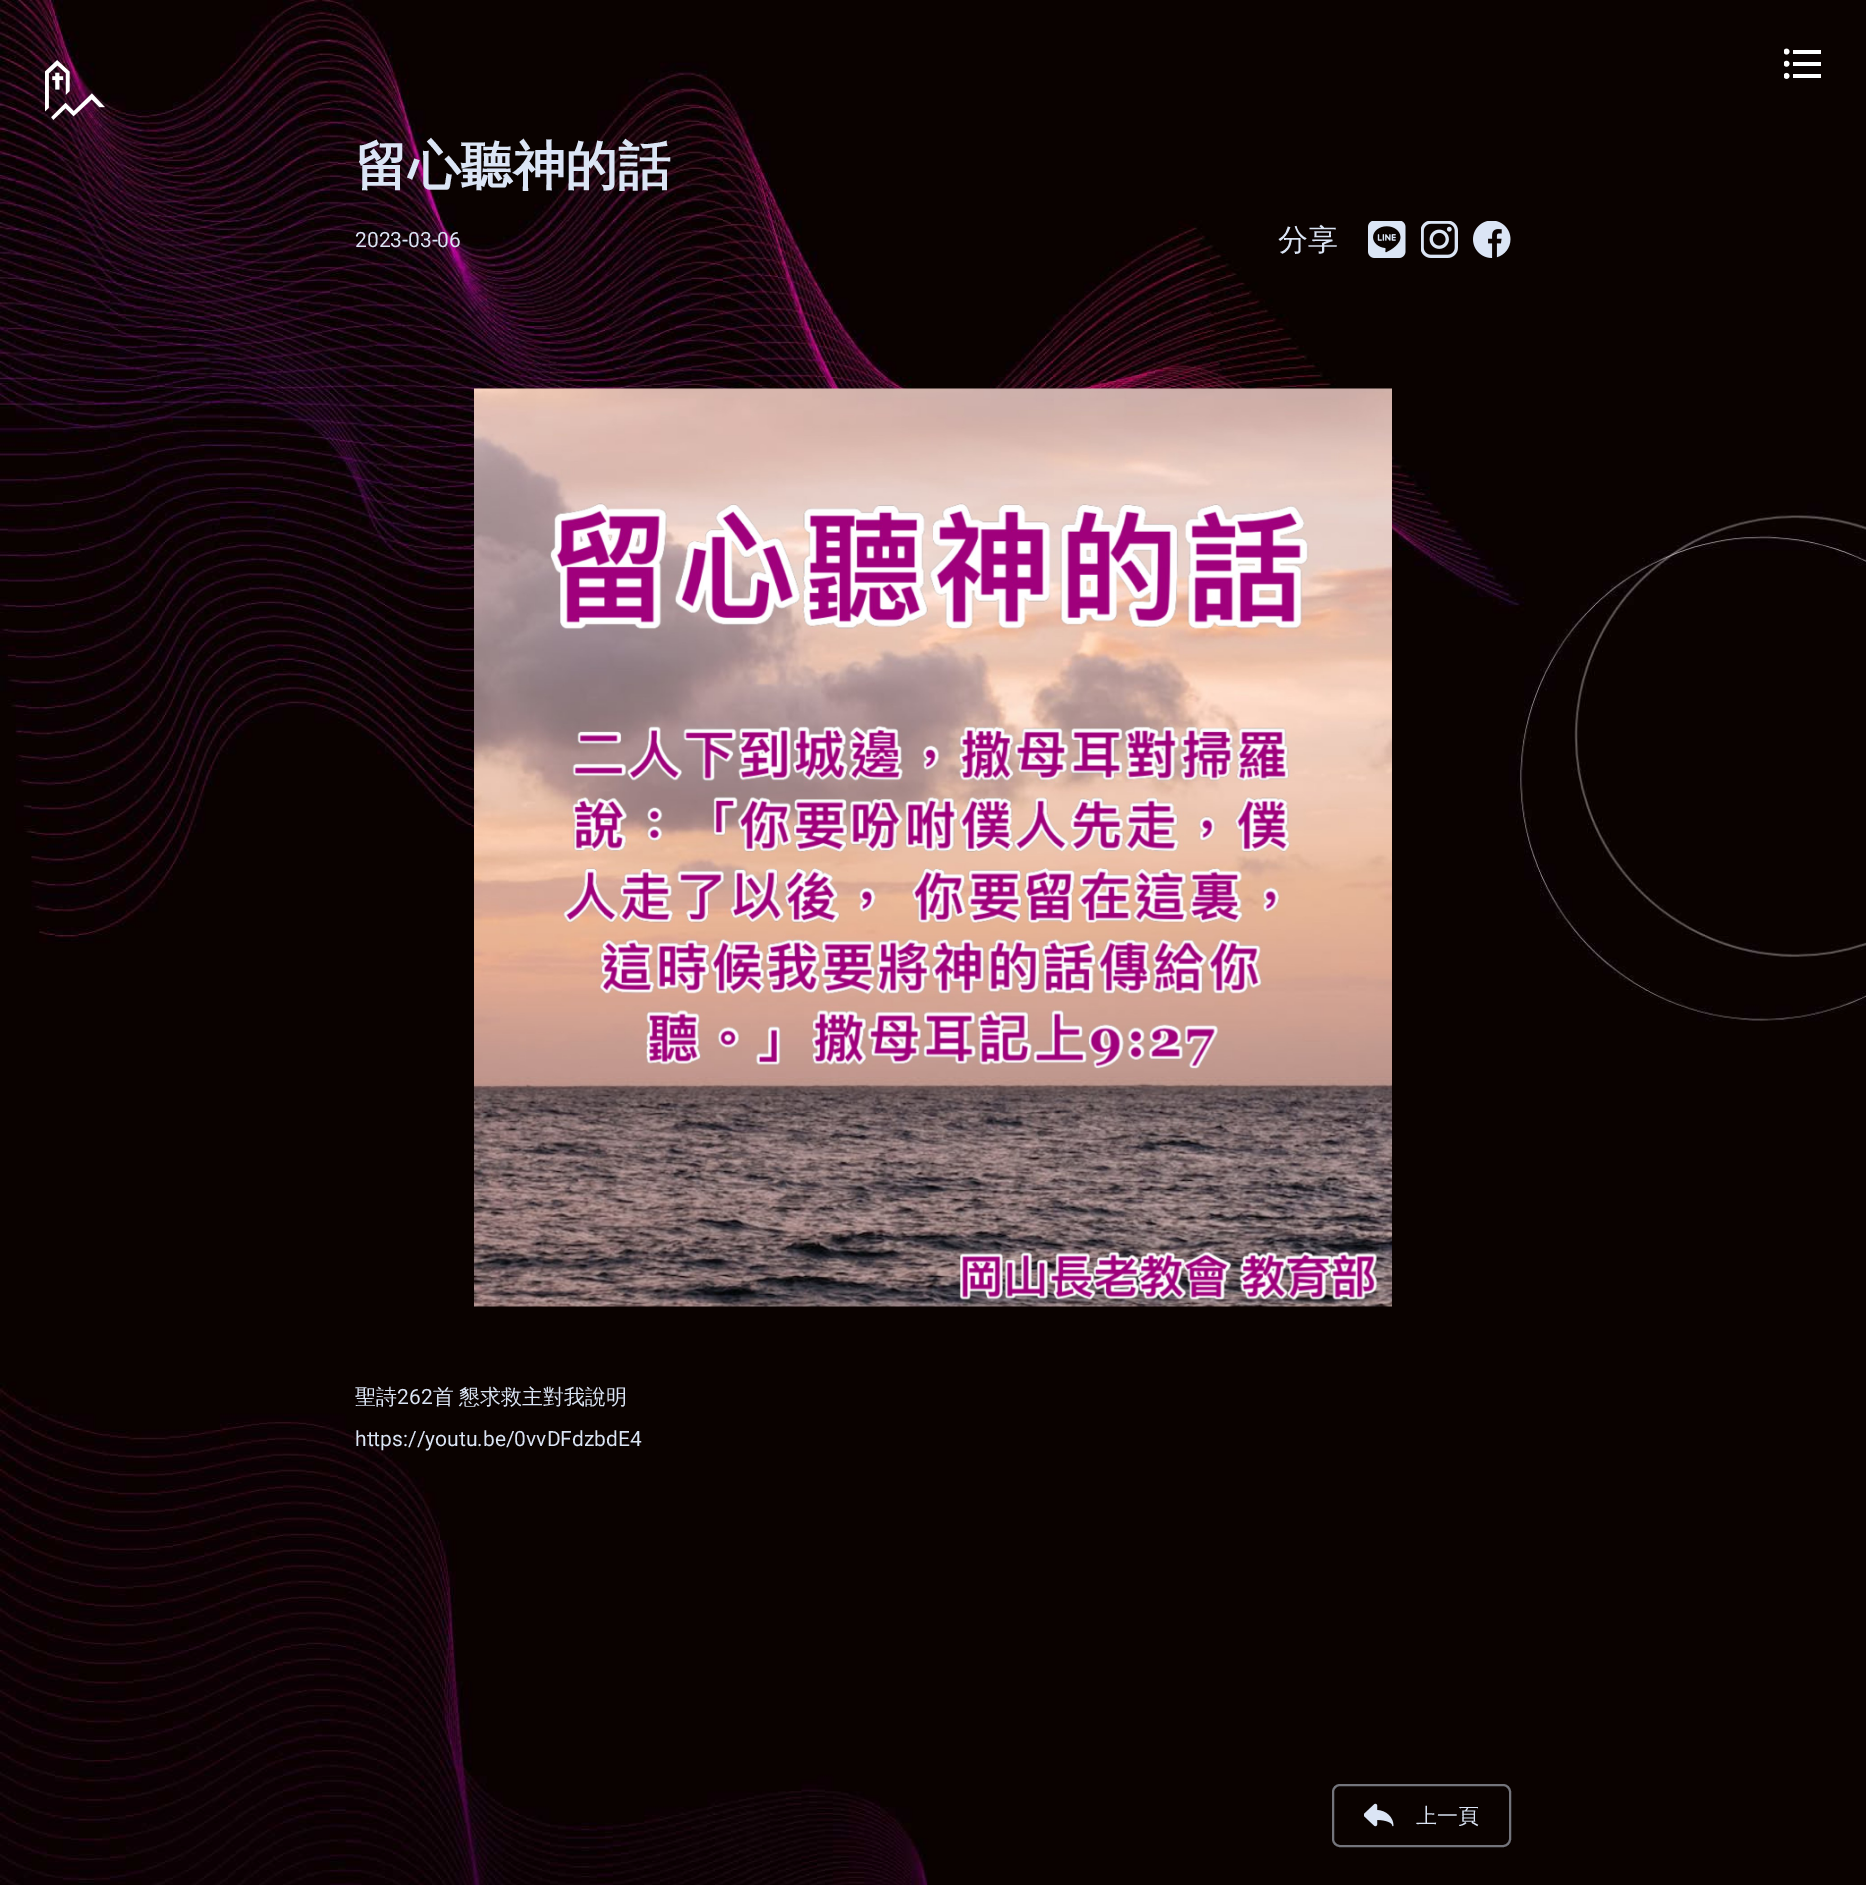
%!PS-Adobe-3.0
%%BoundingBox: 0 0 1866 1885
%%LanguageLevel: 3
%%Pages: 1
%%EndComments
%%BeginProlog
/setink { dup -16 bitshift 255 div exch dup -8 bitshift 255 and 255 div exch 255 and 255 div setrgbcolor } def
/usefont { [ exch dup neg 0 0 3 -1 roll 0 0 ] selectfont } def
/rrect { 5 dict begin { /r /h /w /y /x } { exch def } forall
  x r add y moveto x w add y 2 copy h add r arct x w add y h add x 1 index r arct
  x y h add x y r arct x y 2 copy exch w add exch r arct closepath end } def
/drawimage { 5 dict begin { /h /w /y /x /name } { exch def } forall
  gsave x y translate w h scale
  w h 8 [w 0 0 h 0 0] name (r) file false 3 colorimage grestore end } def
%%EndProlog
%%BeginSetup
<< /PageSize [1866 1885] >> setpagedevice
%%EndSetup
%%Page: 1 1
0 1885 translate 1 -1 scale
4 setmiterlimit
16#FFFFFF setink
0 0 1866 1885 rectfill
(img1.raw) 0 0 1866 1885 drawimage
(img2.raw) 45 60 60 60 drawimage
(img3.raw) 1784 48 37 31 drawimage
/WenQuanYiZenHei-Bold 52.5 usefont
16#DBE5F5 setink
355 184 moveto (留心聽神的話) show
/Roboto-Regular 21 usefont
355 247 moveto (2023-03-06) show
/WenQuanYiZenHei-Medium 30 usefont
1278 250 moveto (分享) show
(img4.raw) 1368 221 38 37 drawimage
(img5.raw) 1421 221 37 37 drawimage
(img6.raw) 1473 221 38 37 drawimage
(img7.raw) 474 388 918 919 drawimage
/WenQuanYiZenHei-Medium 21 usefont
355 1404 moveto (聖詩) show
/Roboto-Regular 21 usefont
397 1404 moveto (262) show
/WenQuanYiZenHei-Medium 21 usefont
433 1404 moveto -1 0 32 (首 懇求救主對我說明) widthshow
/Roboto-Regular 21 usefont
355 1446 moveto (https://youtu.be/0vvDFdzbdE4) show
16#73747B setink
2 setlinewidth
1333 1785 177 61 7 rrect stroke
(img8.raw) 1364 1803 30 24 drawimage
/WenQuanYiZenHei-Medium 21 usefont
16#DBE5F5 setink
1416 1823 moveto (上一頁) show
showpage
%%EOF
